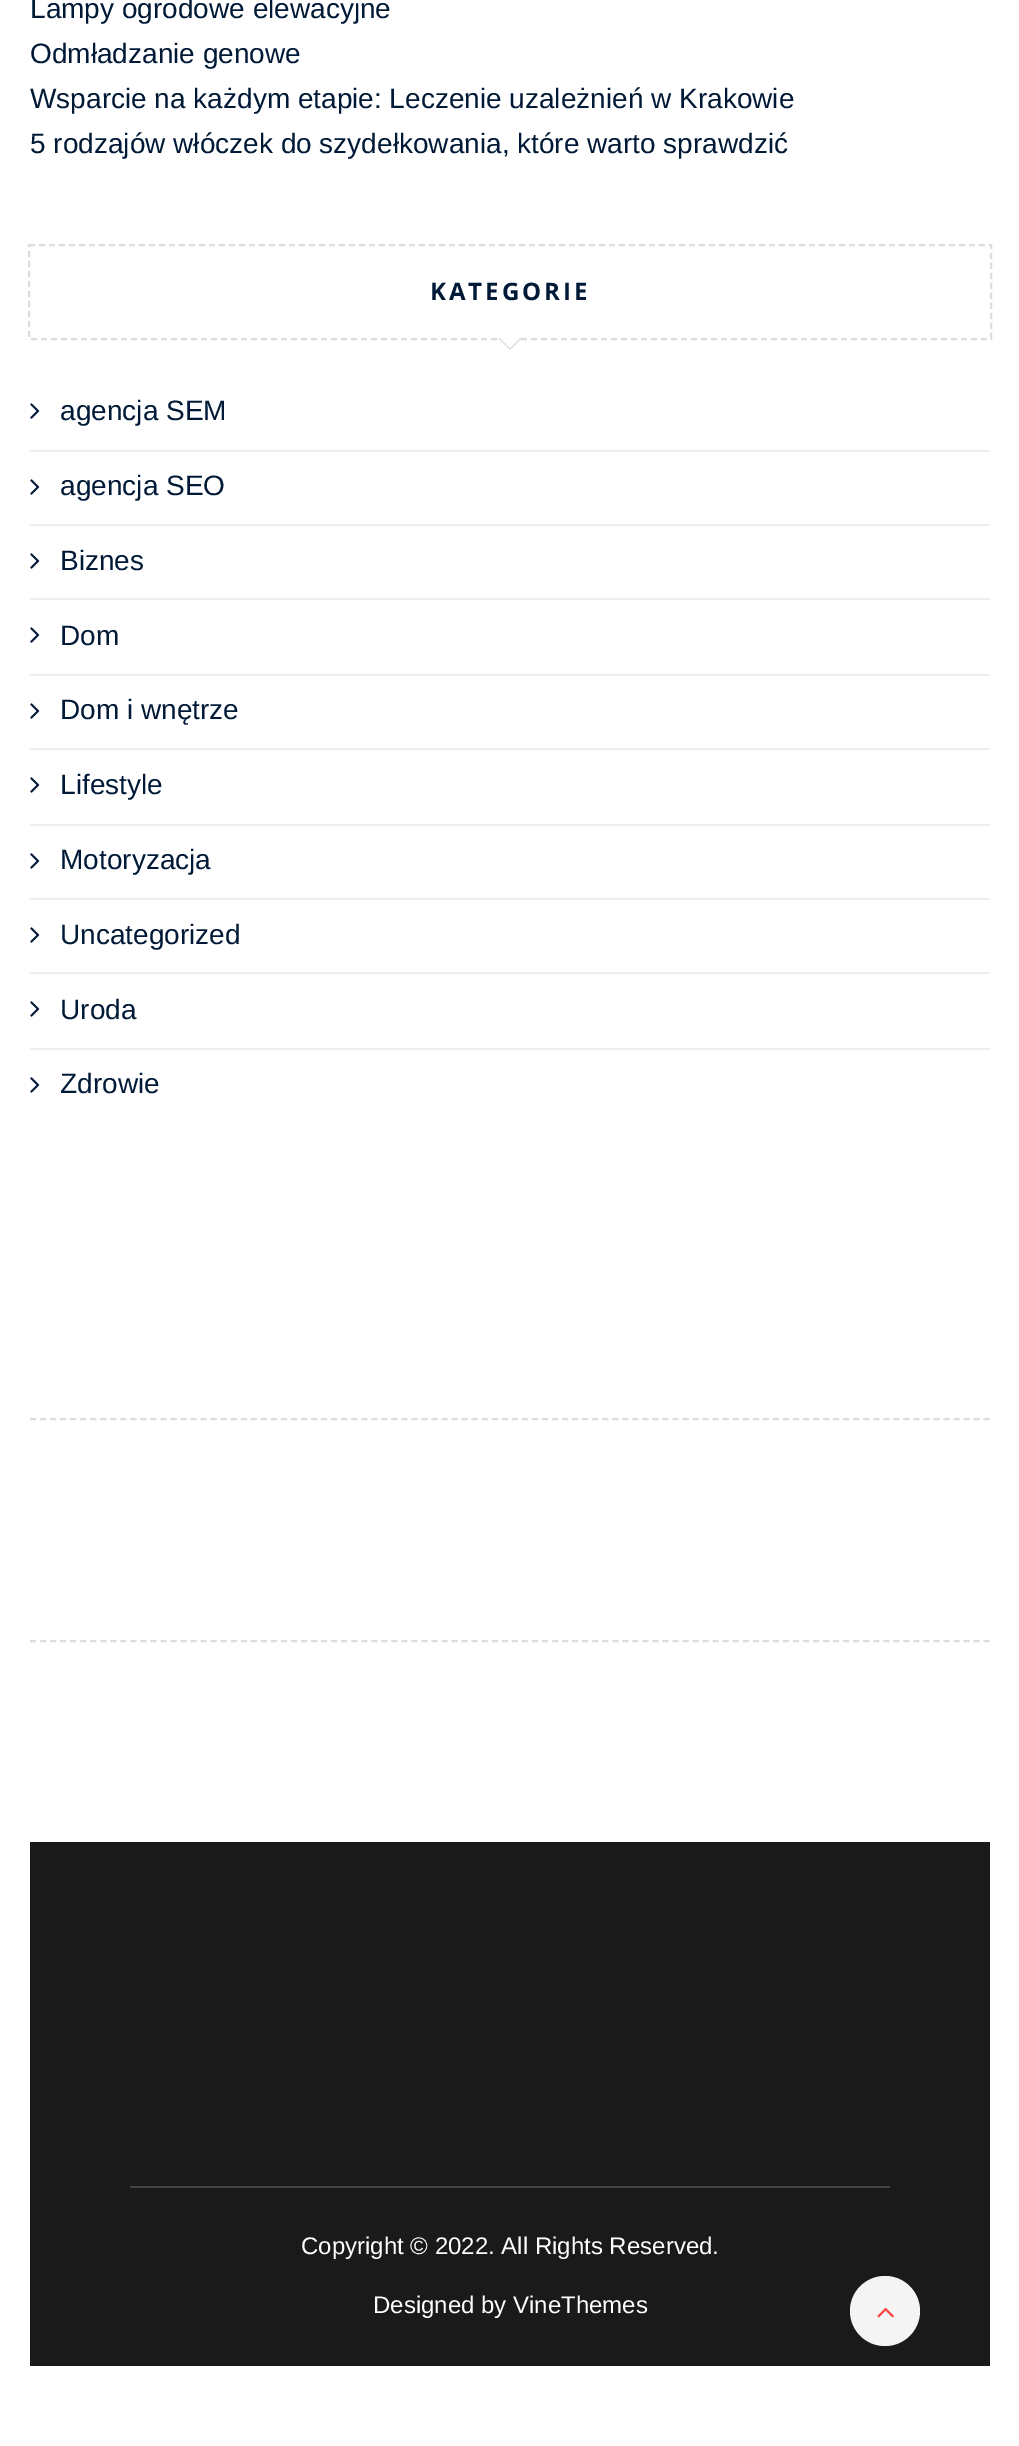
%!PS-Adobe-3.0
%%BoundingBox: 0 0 1019 2446
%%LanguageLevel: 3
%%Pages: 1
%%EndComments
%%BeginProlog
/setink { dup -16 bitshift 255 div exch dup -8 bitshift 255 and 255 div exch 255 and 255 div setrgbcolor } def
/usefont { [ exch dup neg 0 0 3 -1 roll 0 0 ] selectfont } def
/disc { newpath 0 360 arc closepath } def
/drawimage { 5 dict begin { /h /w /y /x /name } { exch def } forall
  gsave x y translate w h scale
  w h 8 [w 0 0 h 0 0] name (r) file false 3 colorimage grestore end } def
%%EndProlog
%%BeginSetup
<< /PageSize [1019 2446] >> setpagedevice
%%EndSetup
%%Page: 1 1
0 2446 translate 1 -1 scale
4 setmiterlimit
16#FFFFFF setink
0 0 1019 2446 rectfill
/LiberationSans-Regular 28 usefont
16#001936 setink
[
    [(Lampy ogrodowe elewacyjne) 30 18]
    [(Odmładzanie genowe) 30 63]
    [(Wsparcie na każdym etapie: Leczenie uzależnień w Krakowie) 30 108]
    [(5 rodzajów włóczek do szydełkowania, które warto sprawdzić) 30 153]
] { aload pop moveto show } forall
/OpenSans-Bold 24 usefont
430 300 moveto 3 0 (KATEGORIE) ashow
16#DDDDDD setink
2 setlinewidth
[6 4] 0 setdash
29 245 moveto 991 245 lineto 991 339 lineto 29 339 lineto closepath stroke
498 338 moveto 522 338 lineto 510 350 lineto closepath fill
16#FFFFFF setink
498 336 moveto 522 336 lineto 510 348 lineto closepath fill
16#EEEEEE setink
30 450 960 2 rectfill
(img1.raw) 30 403 10 16 drawimage
/LiberationSans-Regular 28 usefont
16#001936 setink
60 420 moveto (agencja SEM) show
16#EEEEEE setink
30 524 960 2 rectfill
(img1.raw) 30 479 10 16 drawimage
16#001936 setink
60 495 moveto (agencja SEO) show
16#EEEEEE setink
30 598 960 2 rectfill
(img1.raw) 30 553 10 16 drawimage
16#001936 setink
60 570 moveto (Biznes) show
16#EEEEEE setink
30 674 960 2 rectfill
(img1.raw) 30 627 10 16 drawimage
16#001936 setink
60 645 moveto (Dom) show
16#EEEEEE setink
30 748 960 2 rectfill
(img1.raw) 30 703 10 16 drawimage
16#001936 setink
60 719 moveto (Dom i wnętrze) show
16#EEEEEE setink
30 824 960 2 rectfill
(img1.raw) 30 777 10 16 drawimage
16#001936 setink
60 794 moveto (Lifestyle) show
16#EEEEEE setink
30 898 960 2 rectfill
(img1.raw) 30 853 10 16 drawimage
16#001936 setink
60 869 moveto (Motoryzacja) show
16#EEEEEE setink
30 972 960 2 rectfill
(img1.raw) 30 927 10 16 drawimage
16#001936 setink
60 944 moveto (Uncategorized) show
16#EEEEEE setink
30 1048 960 2 rectfill
(img1.raw) 30 1001 10 16 drawimage
16#001936 setink
60 1019 moveto (Uroda) show
(img1.raw) 30 1077 10 16 drawimage
60 1093 moveto (Zdrowie) show
16#DDDDDD setink
[6 4.04] 0 setdash
30 1419 moveto 990 1419 lineto stroke
30 1641 moveto 990 1641 lineto stroke
16#1A1A1A setink
30 1842 960 524 rectfill
16#444444 setink
130 2186 760 2 rectfill
/LiberationSans-Regular 24 usefont
16#FFFFFF setink
301 2254 moveto (Copyright © 2022. All Rights Reserved.) show
373 2313 moveto (Designed by VineThemes) show
16#F4F4F4 setink
885 2311 35 disc fill
(img2.raw) 877 2307 17 11 drawimage
showpage
%%EOF
